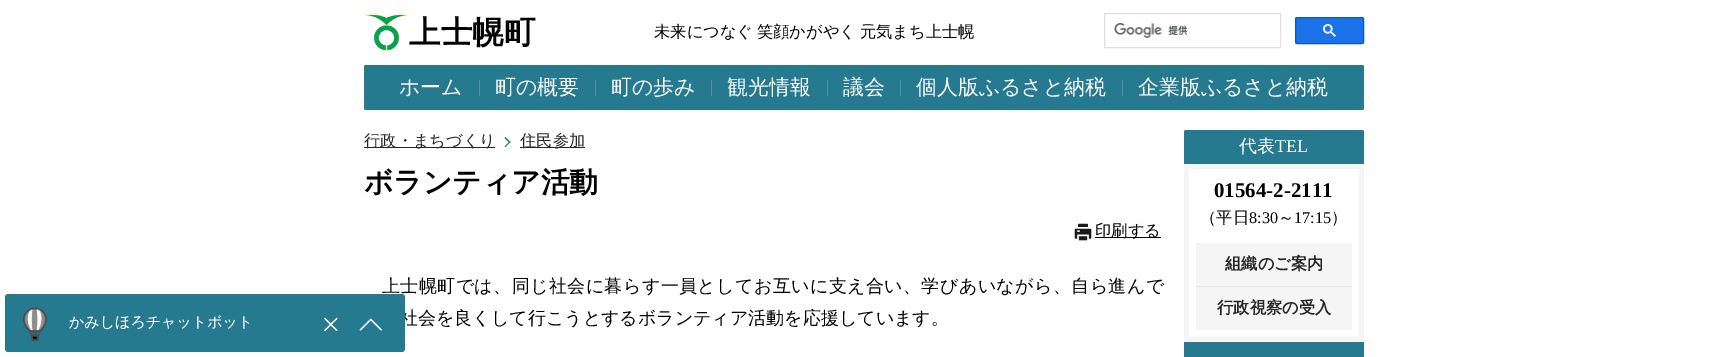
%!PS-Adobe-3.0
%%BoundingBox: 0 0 1727 357
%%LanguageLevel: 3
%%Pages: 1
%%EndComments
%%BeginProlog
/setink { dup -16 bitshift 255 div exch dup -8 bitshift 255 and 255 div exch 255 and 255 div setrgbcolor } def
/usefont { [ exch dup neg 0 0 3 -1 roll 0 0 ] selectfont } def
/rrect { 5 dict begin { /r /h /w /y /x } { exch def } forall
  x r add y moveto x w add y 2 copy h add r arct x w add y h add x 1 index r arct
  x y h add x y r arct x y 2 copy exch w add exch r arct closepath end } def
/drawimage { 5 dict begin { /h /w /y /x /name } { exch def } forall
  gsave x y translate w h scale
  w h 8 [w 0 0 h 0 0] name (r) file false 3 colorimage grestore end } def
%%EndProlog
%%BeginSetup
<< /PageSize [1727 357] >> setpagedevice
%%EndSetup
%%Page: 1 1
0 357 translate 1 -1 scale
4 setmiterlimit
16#FFFFFF setink
0 0 1727 357 rectfill
(img1.raw) 365 14 43 37 drawimage
/WenQuanYiZenHei-Bold 31.5 usefont
16#000000 setink
409 43 moveto (上士幌町) show
/WenQuanYiZenHei-Medium 16.25 usefont
654 37 moveto -1 0 32 (未来につなぐ 笑顔かがやく 元気まち上士幌) widthshow
16#DFE1E5 setink
1104.5 13.5 176 34 rectstroke
(img2.raw) 1114 23 74 15 drawimage
16#1A73E8 setink
1295.5 17.5 68 26 1.5 rrect gsave fill grestore
16#1155CC setink
stroke
(img3.raw) 1323 24 13 13 drawimage
16#267A90 setink
364 65 1000 45 2 rrect fill
/WenQuanYiZenHei-Medium 20.9 usefont
16#FFFFFF setink
399 94 moveto (ホーム) show
16#5195A6 setink
479 80 1 16 rectfill
16#FFFFFF setink
495 94 moveto (町の概要) show
16#5195A6 setink
595 80 1 16 rectfill
16#FFFFFF setink
611 94 moveto (町の歩み) show
16#5195A6 setink
711 80 1 16 rectfill
16#FFFFFF setink
727 94 moveto (観光情報) show
16#5195A6 setink
827 80 1 16 rectfill
16#FFFFFF setink
843 94 moveto (議会) show
16#5195A6 setink
900 80 1 16 rectfill
16#FFFFFF setink
916 94 moveto (個人版ふるさと納税) show
16#5195A6 setink
1122 80 1 16 rectfill
16#FFFFFF setink
1138 94 moveto (企業版ふるさと納税) show
/WenQuanYiZenHei-Medium 18 usefont
16#000000 setink
382 292 moveto 0.4 0 (上士幌町では、同じ社会に暮らす一員としてお互いに支え合い、学びあいながら、自ら進んで) ashow
400 324 moveto (社会を良くして行こうとするボランティア活動を応援しています。) show
(img4.raw) 5 294 400 58 drawimage
16#262626 setink
364 147 131 1 rectfill
/WenQuanYiZenHei-Medium 16.25 usefont
364 146 moveto (行政・まちづくり) show
16#267A90 setink
505.5 137 moveto 510.5 142 lineto 509.5 143 lineto 504.5 138 lineto closepath fill
509.5 141.5 moveto 510.5 142 lineto 505.5 147 lineto 504.5 146.5 lineto closepath fill
16#262626 setink
520 147 65 1 rectfill
520 146 moveto (住民参加) show
/WenQuanYiZenHei-Bold 28.75 usefont
16#000000 setink
364 192 moveto (ボランティア活動) show
(img5.raw) 1074 223 18 18 drawimage
1095 237 66 1 rectfill
/WenQuanYiZenHei-Medium 16.25 usefont
1095 236 moveto (印刷する) show
16#267A90 setink
1186 130 moveto 1362 130 lineto 1363 130 1364 131 1364 132 curveto 1364 164 lineto 1184 164 lineto 1184 132 lineto 1184 131 1185 130 1186 130 curveto closepath fill
/WenQuanYiZenHei-Medium 18 usefont
16#FFFFFF setink
1239 152 moveto (代表) show
/LiberationSerif-Regular 18 usefont
1275 152 moveto (TEL) show
16#F5F5F5 setink
1184 164 180 178 rectfill
16#FFFFFF setink
1189 169 170 168 rectfill
/LiberationSerif-Bold 20.9 usefont
16#000000 setink
1214 197 moveto (01564-2-2111) show
/WenQuanYiZenHei-Medium 16.25 usefont
1200 223 moveto (（平日) show
/LiberationSerif-Regular 16.25 usefont
1249 223 moveto (8:30) show
/WenQuanYiZenHei-Medium 16.25 usefont
1278 223 moveto (～) show
/LiberationSerif-Regular 16.25 usefont
1294 223 moveto (17:15) show
/WenQuanYiZenHei-Medium 16.25 usefont
1331 223 moveto (）) show
16#F5F5F5 setink
1196 243 156 43 rectfill
/WenQuanYiZenHei-Bold 16.25 usefont
16#262626 setink
1225 269 moveto (組織のご案内) show
16#F5F5F5 setink
1196 287 156 43 rectfill
16#E8E8E8 setink
1196 286 156 1 rectfill
16#262626 setink
1217 313 moveto (行政視察の受入) show
16#267A90 setink
1184 342 180 15 rectfill
showpage
%%EOF
